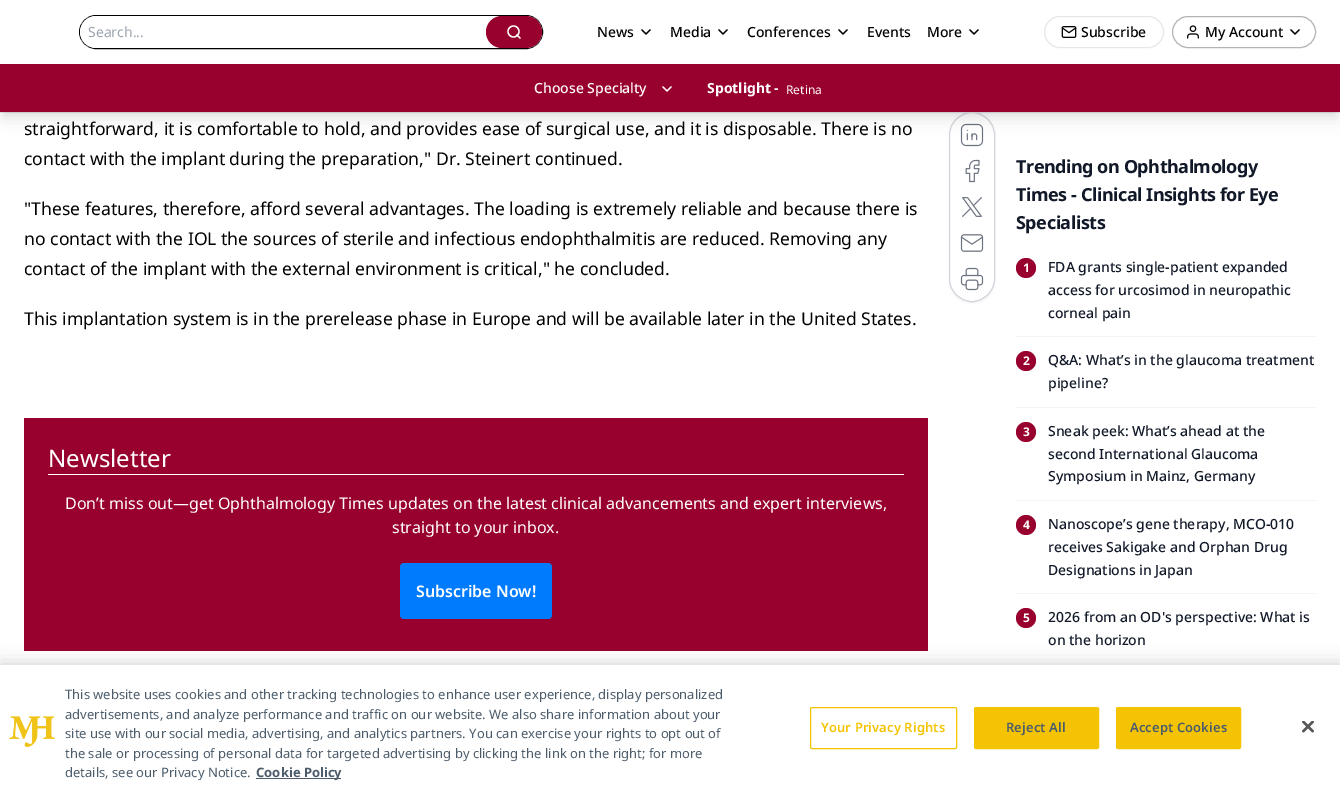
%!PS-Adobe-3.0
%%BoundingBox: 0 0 1340 793
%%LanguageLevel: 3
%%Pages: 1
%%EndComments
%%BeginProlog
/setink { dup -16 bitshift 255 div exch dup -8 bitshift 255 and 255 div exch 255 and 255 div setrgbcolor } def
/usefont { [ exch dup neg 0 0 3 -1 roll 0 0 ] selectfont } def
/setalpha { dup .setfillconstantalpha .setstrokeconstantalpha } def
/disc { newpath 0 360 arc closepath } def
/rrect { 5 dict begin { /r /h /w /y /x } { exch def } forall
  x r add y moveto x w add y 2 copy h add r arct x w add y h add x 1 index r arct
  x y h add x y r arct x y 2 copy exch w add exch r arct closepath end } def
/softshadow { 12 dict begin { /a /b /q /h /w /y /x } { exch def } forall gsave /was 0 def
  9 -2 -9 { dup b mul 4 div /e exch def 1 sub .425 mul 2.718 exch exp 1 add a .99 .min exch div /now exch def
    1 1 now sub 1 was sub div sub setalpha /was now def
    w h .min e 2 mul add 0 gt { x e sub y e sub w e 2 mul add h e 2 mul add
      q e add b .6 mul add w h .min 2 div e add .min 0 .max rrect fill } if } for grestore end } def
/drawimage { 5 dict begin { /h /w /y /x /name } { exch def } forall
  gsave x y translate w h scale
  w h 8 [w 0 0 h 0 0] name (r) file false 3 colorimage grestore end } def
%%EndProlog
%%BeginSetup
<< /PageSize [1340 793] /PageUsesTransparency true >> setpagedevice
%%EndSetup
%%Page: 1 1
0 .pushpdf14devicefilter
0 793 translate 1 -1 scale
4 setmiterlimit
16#FFFFFF setink
0 0 1340 793 rectfill
16#000000 setink
949 113 46 190 23 1 0.05 softshadow
16#FFFFFF setink
949.5 112.5 45 189 22.5 rrect gsave fill grestore
16#D1D5DB setink
stroke
16#E5E7EB setink
0 112 1340 1 rectfill
16#000000 setink
79.5 15.5 463 33 16.5 rrect stroke
16#FFFFFF setink
80 16 462 32 16 rrect fill
/NotoSans-Regular 14 usefont
16#9CA3AF setink
88 37 moveto (Search...) show
16#98012E setink
486 16 56 32 16 rrect fill
16#FFFFFF setink
1.3 setlinewidth
513.5 31.5 5.5 disc stroke
1 setlinecap
1 setlinejoin
520 38 moveto 517 35 lineto stroke
/NotoSans-Medium 14 usefont
16#000000 setink
597 37 moveto (News) show
642 30 moveto 646 34 lineto 650 30 lineto stroke
670 37 moveto (Media) show
719 30 moveto 723 34 lineto 727 30 lineto stroke
747 37 moveto (Conferences) show
839 30 moveto 843 34 lineto 847 30 lineto stroke
867 37 moveto (Events) show
927 37 moveto (More) show
970 30 moveto 974 34 lineto 978 30 lineto stroke
16#E5E7EB setink
1 setlinewidth
0 setlinecap
0 setlinejoin
1044.5 16.5 119 31 15.5 rrect stroke
(img1.raw) 1061 26 16 12 drawimage
16#000000 setink
1081 37 moveto (Subscribe) show
16#B3B3B3 setink
1172.5 16.5 143 31 15.5 rrect stroke
(img2.raw) 1187 25 12 14 drawimage
16#000000 setink
1205 37 moveto (My Account) show
1.3 setlinewidth
1 setlinecap
1 setlinejoin
1291 30 moveto 1295 34 lineto 1299 30 lineto stroke
4 72 1332 40 0 3 0.1 softshadow
(img3.raw) 960 123 24 24 drawimage
3 77 1334 42 0 7.5 0.1 softshadow
16#98012E setink
0 64 1340 48 rectfill
16#FFFFFF setink
534 93 moveto (Choose Specialty) show
663 87 moveto 667 91 lineto 671 87 lineto stroke
/NotoSans-Bold 14 usefont
707 93 moveto (Spotlight -) show
/NotoSans-Regular 12 usefont
786 94 moveto (Retina) show
/NotoSans-Regular 17.6 usefont
16#000000 setink
[
    [(straightforward, it is comfortable to hold, and provides ease of surgical use, and it is disposable. There is no) 24 135]
    [(contact with the implant during the preparation," Dr. Steinert continued.) 24 165]
    [("These features, therefore, afford several advantages. The loading is extremely reliable and because there is) 24 215]
    [(no contact with the IOL the sources of sterile and infectious endophthalmitis are reduced. Removing any) 24 245]
    [(contact of the implant with the external environment is critical," he concluded.) 24 275]
    [(This implantation system is in the prerelease phase in Europe and will be available later in the United States.) 24 325]
] { aload pop moveto show } forall
16#98012E setink
24 418 904 233 rectfill
16#FFFFFF setink
48 474 856 1 rectfill
/NotoSans-Regular 24 usefont
48 467 moveto (Newsletter) show
/NotoSans-Regular 16 usefont
65 509 moveto (Don’t miss out—get Ophthalmology Times updates on the latest clinical advancements and expert interviews,) show
392 533 moveto (straight to your inbox.) show
16#007BFD setink
400 563 152 56 4 rrect fill
/NotoSans-SemiBold 16 usefont
16#FFFFFF setink
416 597 moveto (Subscribe Now!) show
(img4.raw) 965 159 15 24 drawimage
(img5.raw) 962 197 20 20 drawimage
(img6.raw) 960 234 24 18 drawimage
(img7.raw) 960 267 24 24 drawimage
/NotoSans-Bold 18 usefont
16#111827 setink
1016 173 moveto -0.45 0 (Trending on Ophthalmology) ashow
1016 201 moveto -0.45 0 (Times - Clinical Insights for Eye) ashow
1016 229 moveto -0.45 0 (Specialists) ashow
16#98012E setink
1026 268 10 disc fill
/NotoSans-Bold 12 usefont
16#FFFFFF setink
1023 272 moveto (1) show
/NotoSans-Medium 14 usefont
16#111827 setink
[
    [(FDA grants single-patient expanded) 1048 272]
    [(access for urcosimod in neuropathic) 1048 295]
    [(corneal pain) 1048 318]
] { aload pop moveto show } forall
16#F3F4F6 setink
1016 336 300 1 rectfill
16#98012E setink
1026 361 10 disc fill
/NotoSans-Bold 12 usefont
16#FFFFFF setink
1023 365 moveto (2) show
/NotoSans-Medium 14 usefont
16#111827 setink
1048 365 moveto (Q&A: What’s in the glaucoma treatment) show
1048 388 moveto (pipeline?) show
16#F3F4F6 setink
1016 407 300 1 rectfill
16#98012E setink
1026 432 10 disc fill
/NotoSans-Bold 12 usefont
16#FFFFFF setink
1023 436 moveto (3) show
/NotoSans-Medium 14 usefont
16#111827 setink
[
    [(Sneak peek: What’s ahead at the) 1048 436]
    [(second International Glaucoma) 1048 459]
    [(Symposium in Mainz, Germany) 1048 481]
] { aload pop moveto show } forall
16#F3F4F6 setink
1016 500 300 1 rectfill
16#98012E setink
1026 525 10 disc fill
/NotoSans-Bold 12 usefont
16#FFFFFF setink
1023 529 moveto (4) show
/NotoSans-Medium 14 usefont
16#111827 setink
[
    [(Nanoscope’s gene therapy, MCO-010) 1048 529]
    [(receives Sakigake and Orphan Drug) 1048 552]
    [(Designations in Japan) 1048 575]
] { aload pop moveto show } forall
16#F3F4F6 setink
1016 593 300 1 rectfill
16#98012E setink
1026 618 10 disc fill
/NotoSans-Bold 12 usefont
16#FFFFFF setink
1023 622 moveto (5) show
/NotoSans-Medium 14 usefont
16#111827 setink
1048 622 moveto (2026 from an OD's perspective: What is) show
1048 645 moveto (on the horizon) show
16#000000 setink
0 665 1340 128 0 9 0.2 softshadow
16#FFFFFF setink
0 665 1340 128 rectfill
(img8.raw) 9 716 46 31 drawimage
/NotoSans-Regular 13 usefont
16#4C5C6B setink
[
    [(This website uses cookies and other tracking technologies to enhance user experience, display personalized) 65 699]
    [(advertisements, and analyze performance and traffic on our website. We also share information about your) 65 719]
    [(site use with our social media, advertising, and analytics partners. You can exercise your rights to opt out of) 65 738]
    [(the sale or processing of personal data for targeted advertising by clicking the link on the right; for more) 65 758]
    [(details, see our Privacy Notice.) 65 777]
] { aload pop moveto show } forall
256 778 85 1 rectfill
/NotoSans-Bold 13 usefont
256 777 moveto (Cookie Policy) show
16#F4C404 setink
1 setlinewidth
0 setlinecap
0 setlinejoin
810.5 707.5 146 41 1.5 rrect stroke
/NotoSans-SemiBold 13 usefont
821 732 moveto 0.1 0 (Your Privacy Rights) ashow
974.5 707.5 124 41 1.5 rrect gsave fill grestore
stroke
16#4C5C6B setink
1006 732 moveto 0.1 0 (Reject All) ashow
16#F4C404 setink
1116.5 707.5 124 41 1.5 rrect gsave fill grestore
stroke
16#4C5C6B setink
1130 732 moveto 0.1 0 (Accept Cookies) ashow
(img9.raw) 1302 721 12 12 drawimage
.poppdf14devicefilter showpage
%%EOF
